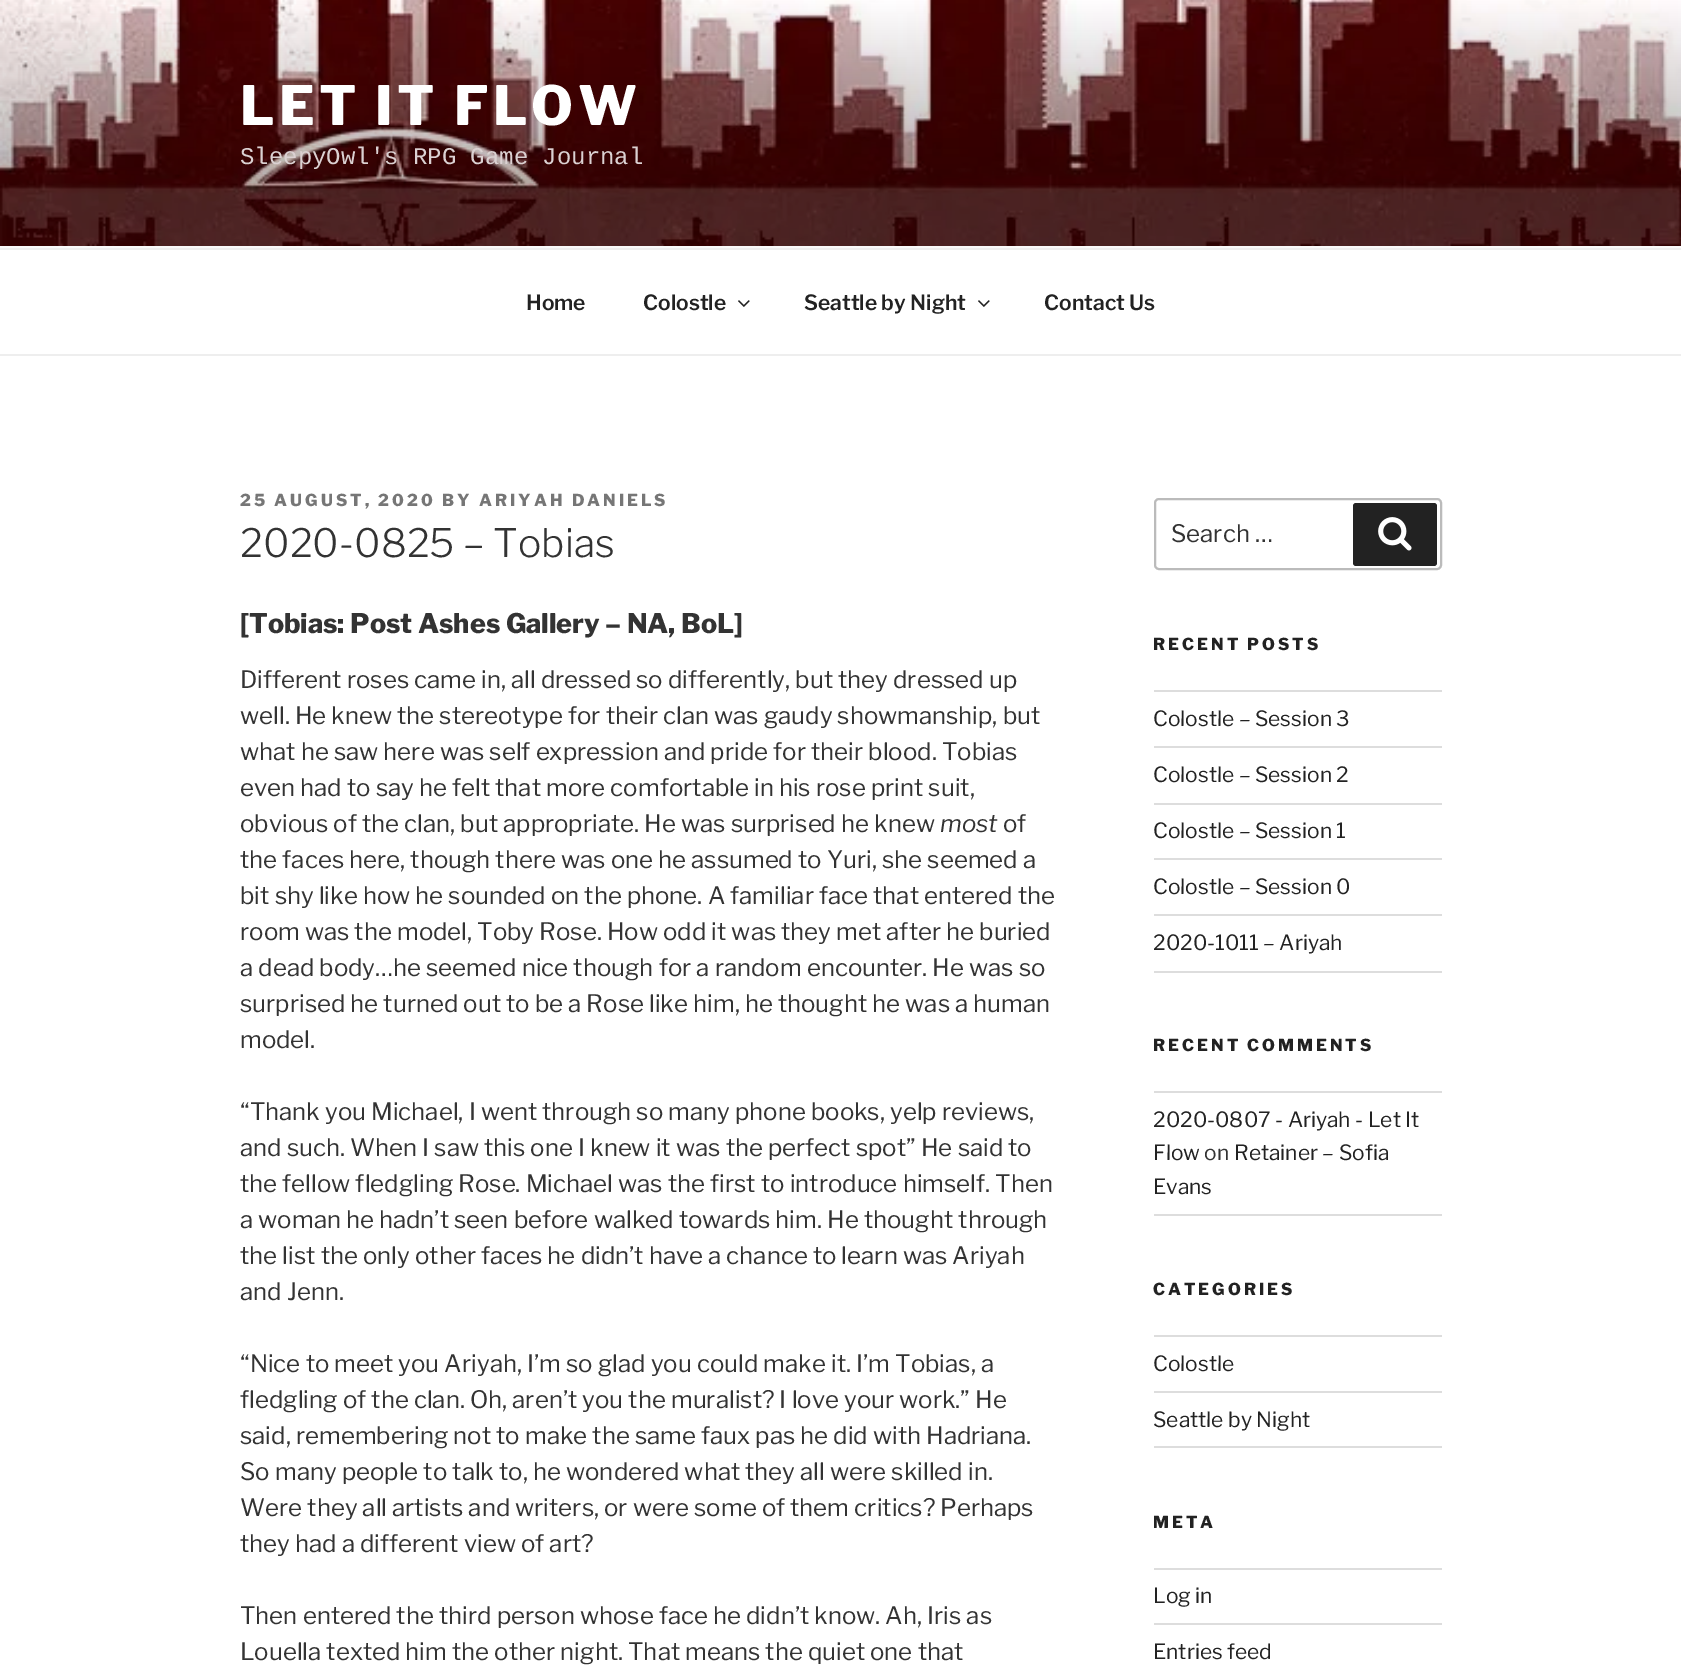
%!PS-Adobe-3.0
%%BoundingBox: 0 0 1681 1677
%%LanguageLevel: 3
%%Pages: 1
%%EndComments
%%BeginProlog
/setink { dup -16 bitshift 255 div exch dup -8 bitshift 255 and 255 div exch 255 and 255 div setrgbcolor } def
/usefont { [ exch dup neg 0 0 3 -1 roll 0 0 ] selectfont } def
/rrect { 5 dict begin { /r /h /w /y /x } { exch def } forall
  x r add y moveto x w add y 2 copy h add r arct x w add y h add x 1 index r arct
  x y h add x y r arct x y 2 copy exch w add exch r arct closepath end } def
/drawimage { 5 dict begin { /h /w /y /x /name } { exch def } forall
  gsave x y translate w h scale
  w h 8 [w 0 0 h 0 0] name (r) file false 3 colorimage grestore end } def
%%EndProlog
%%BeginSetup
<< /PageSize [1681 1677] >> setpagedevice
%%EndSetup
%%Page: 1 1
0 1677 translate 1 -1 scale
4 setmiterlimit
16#FFFFFF setink
0 0 1681 1677 rectfill
16#FAFAFA setink
0 246 1681 2 rectfill
(img1.raw) 0 0 1681 246 drawimage
/LibreFranklin-Thin 54 usefont
16#FFFFFF setink
240 125 moveto 4.25 0 (LET IT FLOW) ashow
/LiberationMono-Regular 24 usefont
16#DBD1D2 setink
240 164 moveto (SleepyOwl's RPG Game Journal) show
16#EEEEEE setink
0 248 1681 2 rectfill
0 354 1681 2 rectfill
/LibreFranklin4-Thin 21 usefont
16#222222 setink
526 310 moveto (Home) show
643 310 moveto (Colostle) show
(img2.raw) 738 300 12 7 drawimage
804 310 moveto (Seattle by Night) show
(img2.raw) 978 300 12 7 drawimage
1044 310 moveto (Contact Us) show
/LibreFranklin-Thin 16.5 usefont
16#767676 setink
240 506 moveto 3 0 (25 AUGUST, 2020 BY ARIYAH DANIELS) ashow
/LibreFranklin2-Thin 39 usefont
16#333333 setink
240 557 moveto (2020-0825 – Tobias) show
/LibreFranklin-Thin 27 usefont
240 633 moveto ([Tobias: Post Ashes Gallery – NA, BoL]) show
/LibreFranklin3-Thin 24 usefont
[
    [(Different roses came in, all dressed so differently, but they dressed up) 240 688]
    [(well. He knew the stereotype for their clan was gaudy showmanship, but) 240 724]
    [(what he saw here was self expression and pride for their blood. Tobias) 240 760]
    [(even had to say he felt that more comfortable in his rose print suit,) 240 796]
    [(obvious of the clan, but appropriate. He was surprised he knew) 240 832]
] { aload pop moveto show } forall
/LibreFranklin-ThinItalic 24 usefont
940 832 moveto (most) show
/LibreFranklin3-Thin 24 usefont
[
    [(of) 1003 832]
    [(the faces here, though there was one he assumed to Yuri, she seemed a) 240 868]
    [(bit shy like how he sounded on the phone. A familiar face that entered the) 240 904]
    [(room was the model, Toby Rose. How odd it was they met after he buried) 240 940]
    [(a dead body…he seemed nice though for a random encounter. He was so) 240 976]
    [(surprised he turned out to be a Rose like him, he thought he was a human) 240 1012]
    [(model.) 240 1048]
    [(“Thank you Michael, I went through so many phone books, yelp reviews,) 240 1120]
    [(and such. When I saw this one I knew it was the perfect spot” He said to) 240 1156]
    [(the fellow fledgling Rose. Michael was the first to introduce himself. Then) 240 1192]
    [(a woman he hadn’t seen before walked towards him. He thought through) 240 1228]
    [(the list the only other faces he didn’t have a chance to learn was Ariyah) 240 1264]
    [(and Jenn.) 240 1300]
    [(“Nice to meet you Ariyah, I’m so glad you could make it. I’m Tobias, a) 240 1372]
    [(fledgling of the clan. Oh, aren’t you the muralist? I love your work.” He) 240 1408]
    [(said, remembering not to make the same faux pas he did with Hadriana.) 240 1444]
    [(So many people to talk to, he wondered what they all were skilled in.) 240 1480]
    [(Were they all artists and writers, or were some of them critics? Perhaps) 240 1516]
    [(they had a different view of art?) 240 1552]
    [(Then entered the third person whose face he didn’t know. Ah, Iris as) 240 1624]
    [(Louella texted him the other night. That means the quiet one that) 240 1660]
] { aload pop moveto show } forall
16#BBBBBB setink
2 setlinewidth
1155 499 286 70 4 rrect stroke
16#333333 setink
1171 542 moveto (Search …) show
16#222222 setink
1353 503 84 63 3 rrect fill
(img3.raw) 1378 517 34 34 drawimage
/LibreFranklin-Thin 16.5 usefont
1153 650 moveto 3 0 (RECENT POSTS) ashow
16#DDDDDD setink
1154 690 288 2 rectfill
1154 746 288 2 rectfill
/LibreFranklin3-Thin 21 usefont
16#222222 setink
1153 726 moveto (Colostle – Session 3) show
16#DDDDDD setink
1154 803 288 2 rectfill
16#222222 setink
1153 782 moveto (Colostle – Session 2) show
16#DDDDDD setink
1154 858 288 2 rectfill
16#222222 setink
1153 838 moveto (Colostle – Session 1) show
16#DDDDDD setink
1154 914 288 2 rectfill
16#222222 setink
1153 894 moveto (Colostle – Session 0) show
16#DDDDDD setink
1154 971 288 2 rectfill
16#222222 setink
1153 950 moveto (2020-1011 – Ariyah) show
/LibreFranklin-Thin 16.5 usefont
1153 1051 moveto 3 0 (RECENT COMMENTS) ashow
16#DDDDDD setink
1154 1091 288 2 rectfill
1154 1214 288 2 rectfill
/LibreFranklin3-Thin 21 usefont
16#222222 setink
1153 1127 moveto (2020-0807 - Ariyah - Let It) show
1153 1160 moveto (Flow) show
16#333333 setink
1204 1160 moveto (on) show
16#222222 setink
1234 1160 moveto (Retainer – Sofia) show
1153 1194 moveto (Evans) show
/LibreFranklin-Thin 16.5 usefont
1153 1295 moveto 3 0 (CATEGORIES) ashow
16#DDDDDD setink
1154 1335 288 2 rectfill
1154 1391 288 2 rectfill
/LibreFranklin3-Thin 21 usefont
16#222222 setink
1153 1371 moveto (Colostle) show
16#DDDDDD setink
1154 1446 288 2 rectfill
16#222222 setink
1153 1427 moveto (Seattle by Night) show
/LibreFranklin-Thin 16.5 usefont
1153 1528 moveto 3 0 (META) ashow
16#DDDDDD setink
1154 1568 288 2 rectfill
1154 1623 288 2 rectfill
/LibreFranklin3-Thin 21 usefont
16#222222 setink
1153 1603 moveto (Log in) show
1153 1659 moveto (Entries feed) show
showpage
%%EOF
